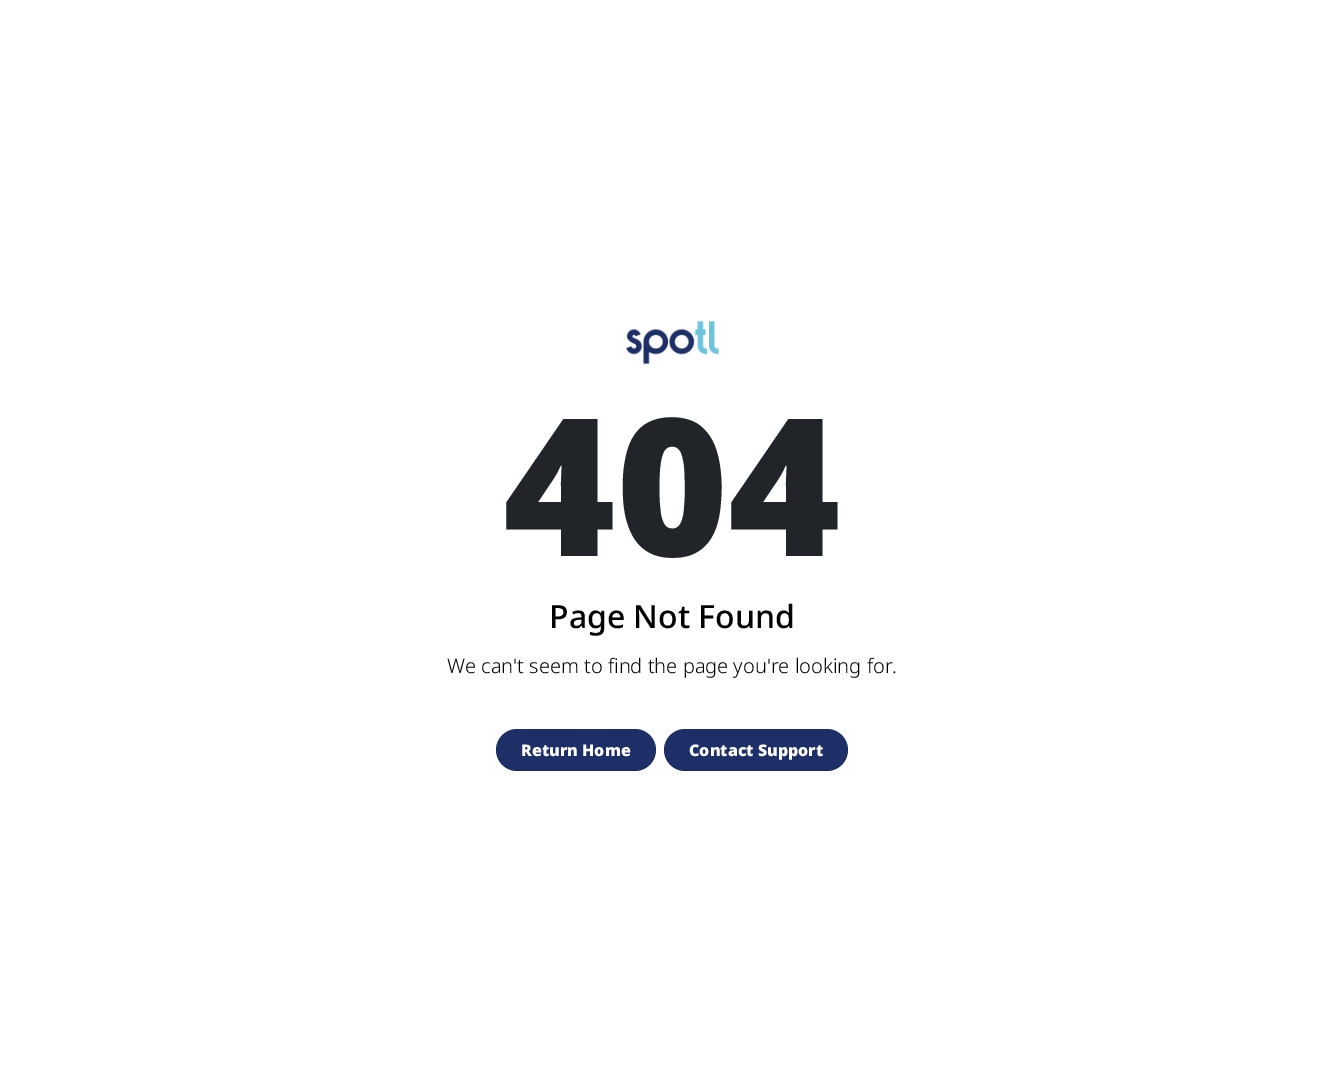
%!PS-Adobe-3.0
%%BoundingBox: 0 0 1344 1088
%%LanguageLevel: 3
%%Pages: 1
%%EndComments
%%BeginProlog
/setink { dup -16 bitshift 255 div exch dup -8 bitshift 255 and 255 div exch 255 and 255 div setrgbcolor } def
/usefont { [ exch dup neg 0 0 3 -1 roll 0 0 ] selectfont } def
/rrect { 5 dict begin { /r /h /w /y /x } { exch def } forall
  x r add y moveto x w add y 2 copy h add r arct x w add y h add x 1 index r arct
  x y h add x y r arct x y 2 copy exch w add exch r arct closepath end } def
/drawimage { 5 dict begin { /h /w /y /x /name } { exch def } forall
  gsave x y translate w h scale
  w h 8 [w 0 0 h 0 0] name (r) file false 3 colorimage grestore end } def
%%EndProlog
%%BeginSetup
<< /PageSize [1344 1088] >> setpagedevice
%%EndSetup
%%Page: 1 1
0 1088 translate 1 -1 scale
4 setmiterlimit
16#FFFFFF setink
0 0 1344 1088 rectfill
(img1.raw) 626 320 93 45 drawimage
/NotoSans-Black 192 usefont
16#212529 setink
503 556 moveto (404) show
/NotoSans-Medium 32 usefont
16#000000 setink
549 628 moveto (Page Not Found) show
/NotoSans-Light 20 usefont
447 673 moveto (We can't seem to find the page you're looking for.) show
16#1E2F68 setink
496 729 160 42 21 rrect fill
/NotoSans-Black 16 usefont
16#FFFFFF setink
521 756 moveto (Return Home) show
16#1E2F68 setink
664 729 184 42 21 rrect fill
16#FFFFFF setink
689 756 moveto (Contact Support) show
showpage
%%EOF
